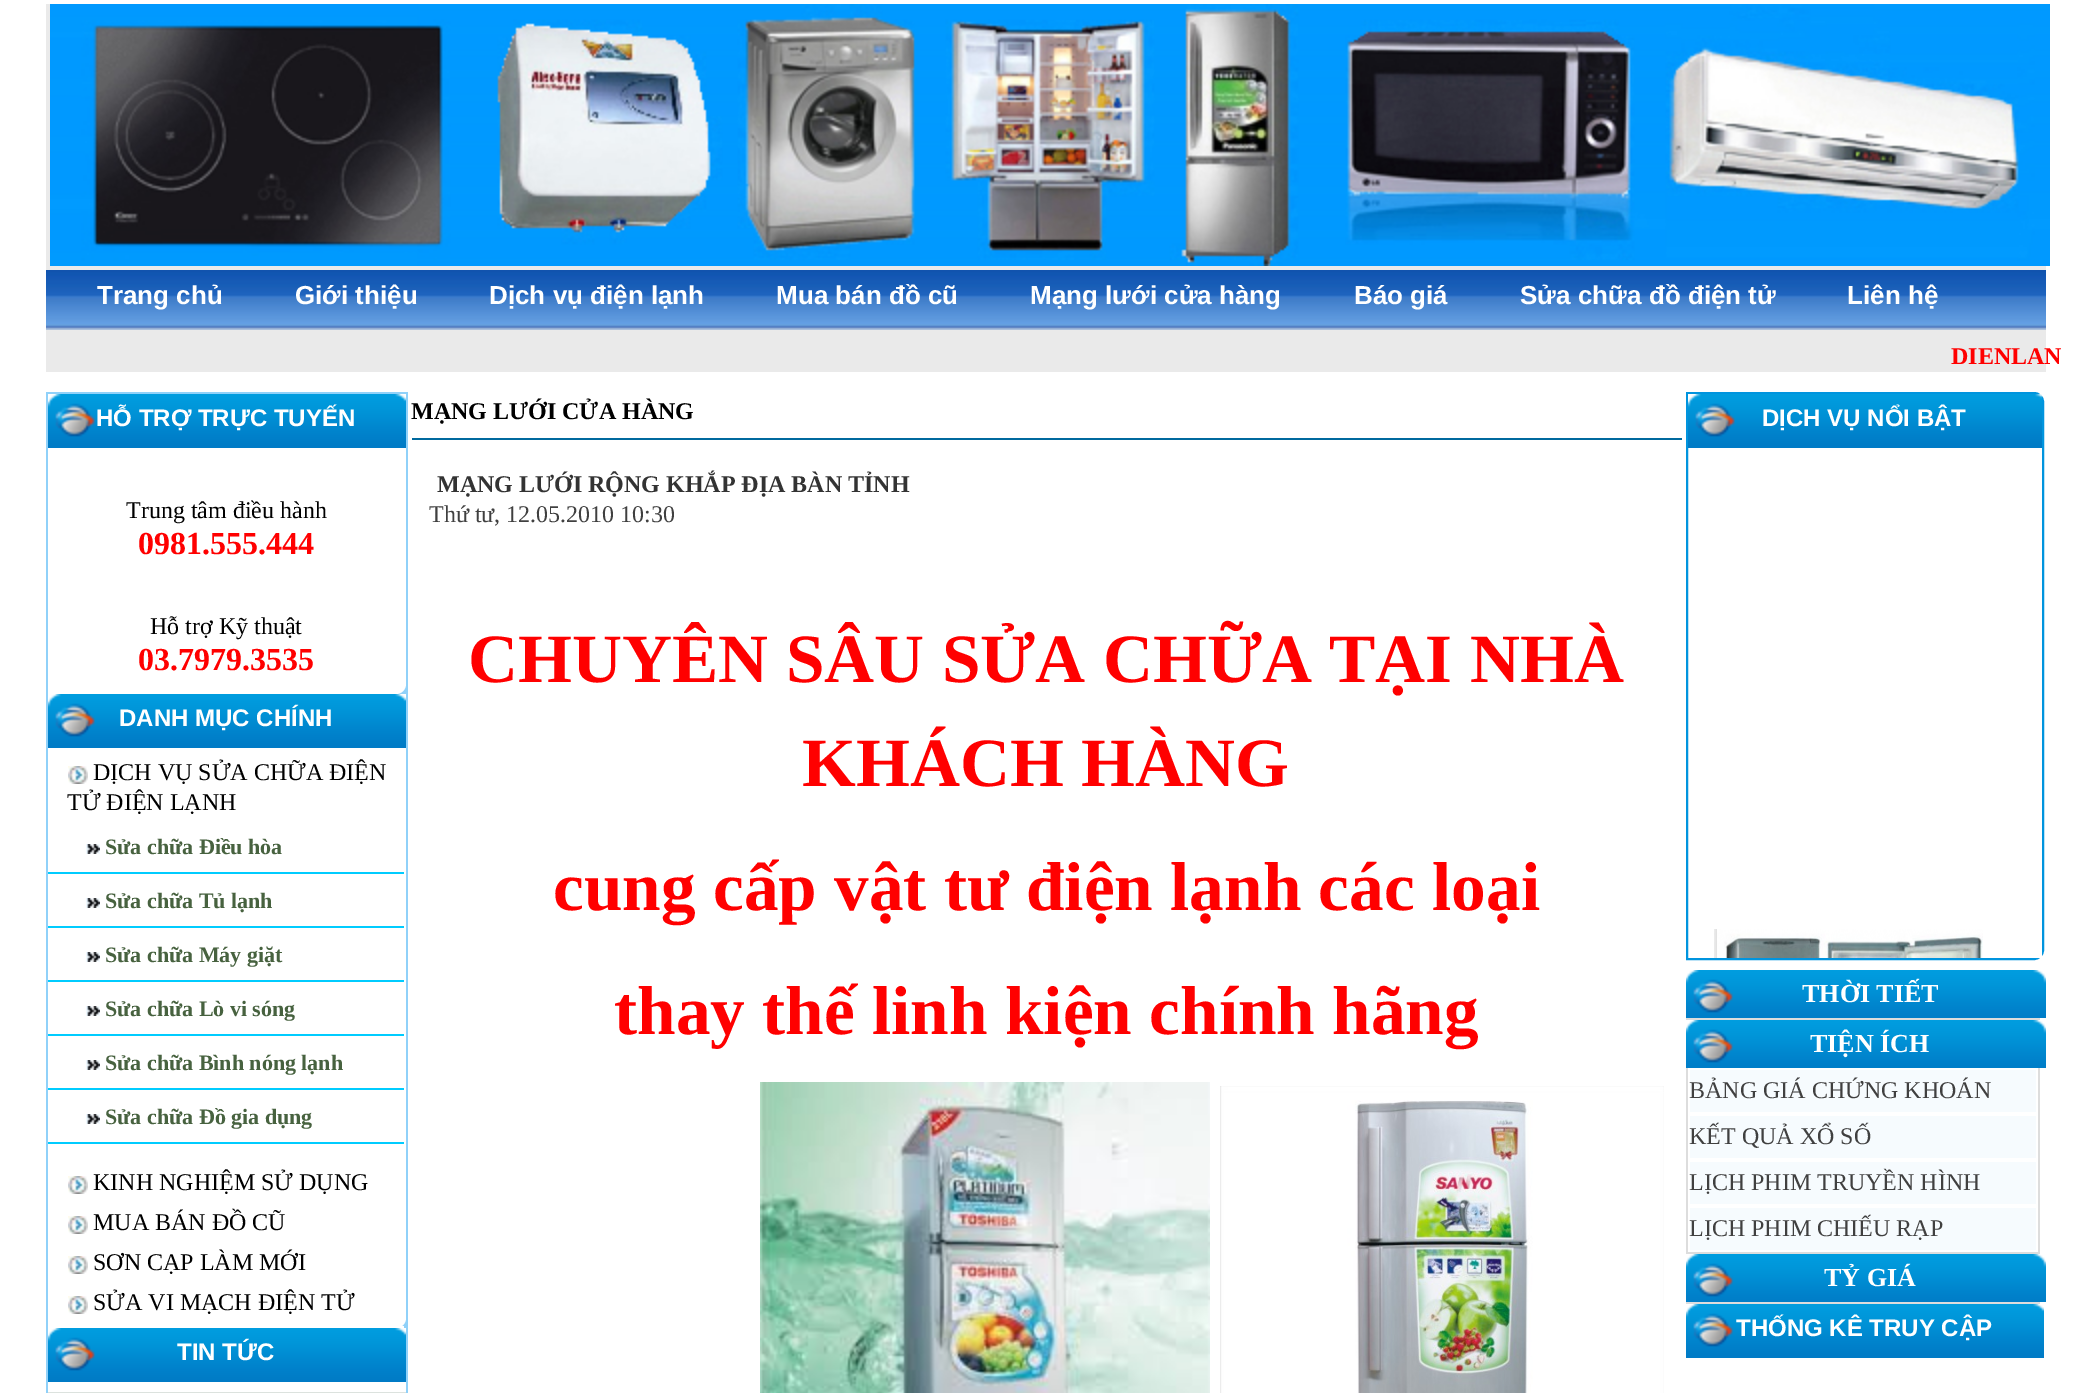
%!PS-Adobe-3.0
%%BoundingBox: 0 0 2089 1393
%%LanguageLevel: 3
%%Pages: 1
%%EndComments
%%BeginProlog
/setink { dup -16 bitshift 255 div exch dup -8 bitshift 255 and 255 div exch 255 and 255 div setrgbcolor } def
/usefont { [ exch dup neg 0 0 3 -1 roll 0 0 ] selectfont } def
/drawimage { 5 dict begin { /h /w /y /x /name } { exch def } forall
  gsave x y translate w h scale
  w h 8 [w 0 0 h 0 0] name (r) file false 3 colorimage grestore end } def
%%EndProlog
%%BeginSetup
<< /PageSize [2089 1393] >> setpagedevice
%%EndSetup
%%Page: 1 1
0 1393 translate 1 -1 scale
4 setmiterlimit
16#FFFFFF setink
0 0 2089 1393 rectfill
16#EAEAEA setink
46 4 2000 368 rectfill
(img1.raw) 50 4 2000 262 drawimage
(img2.raw) 46 270 2000 60 drawimage
/LiberationSans-Bold 26 usefont
16#FFFFFF setink
[
    [(Trang chủ) 97 304]
    [(Giới thiệu) 295 304]
    [(Dịch vụ điện lạnh) 489 304]
    [(Mua bán đồ cũ) 776 304]
    [(Mạng lưới cửa hàng) 1030 304]
    [(Báo giá) 1354 304]
    [(Sửa chữa đồ điện tử) 1520 304]
    [(Liên hệ) 1847 304]
] { aload pop moveto show } forall
/LiberationSerif-Bold 24 usefont
16#FF0000 setink
1951 364 moveto (DIENLAN) show
16#90D1F9 setink
46 392 362 1001 rectfill
16#FFFFFF setink
48 394 moveto 396 394 lineto 401.5 394 406 398.5 406 404 curveto 406 684 lineto 406 689.5 401.5 694 396 694 curveto 48 694 lineto closepath fill
(img3.raw) 48 394 358 54 drawimage
/LiberationSans-Bold 24 usefont
96 426 moveto (HỖ TRỢ TRỰC TUYẾN) show
/LiberationSerif-Regular 24 usefont
16#000000 setink
126 518 moveto (Trung tâm điều hành) show
/LiberationSerif-Bold 32 usefont
16#FF0000 setink
138 554 moveto (0981.555.444) show
/LiberationSerif-Regular 24 usefont
16#000000 setink
150 634 moveto (Hỗ trợ Kỹ thuật) show
/LiberationSerif-Bold 32 usefont
16#FF0000 setink
138 670 moveto (03.7979.3535) show
16#FFFFFF setink
48 694 moveto 396 694 lineto 401.5 694 406 698.5 406 704 curveto 406 1318 lineto 406 1323.5 401.5 1328 396 1328 curveto 48 1328 lineto closepath fill
(img3.raw) 48 694 358 54 drawimage
/LiberationSans-Bold 24 usefont
119 726 moveto (DANH MỤC CHÍNH) show
(img4.raw) 68 766 20 18 drawimage
/LiberationSerif-Regular 24 usefont
16#000000 setink
93 780 moveto (DỊCH VỤ SỬA CHỮA ĐIỆN) show
67 810 moveto (TỬ ĐIỆN LẠNH) show
(img5.raw) 86 844 14 10 drawimage
/LiberationSerif-Bold 22 usefont
16#47623F setink
105 854 moveto (Sửa chữa Điều hòa) show
16#00CCFF setink
48 872 356 2 rectfill
(img5.raw) 86 898 14 10 drawimage
16#47623F setink
105 908 moveto (Sửa chữa Tủ lạnh) show
16#00CCFF setink
48 926 356 2 rectfill
(img5.raw) 86 952 14 10 drawimage
16#47623F setink
105 962 moveto (Sửa chữa Máy giặt) show
16#00CCFF setink
48 980 356 2 rectfill
(img5.raw) 86 1006 14 10 drawimage
16#47623F setink
105 1016 moveto (Sửa chữa Lò vi sóng) show
16#00CCFF setink
48 1034 356 2 rectfill
(img5.raw) 86 1060 14 10 drawimage
16#47623F setink
105 1070 moveto (Sửa chữa Bình nóng lạnh) show
16#00CCFF setink
48 1088 356 2 rectfill
(img5.raw) 86 1114 14 10 drawimage
16#47623F setink
105 1124 moveto (Sửa chữa Đồ gia dụng) show
16#00CCFF setink
48 1142 356 2 rectfill
(img4.raw) 68 1176 20 18 drawimage
/LiberationSerif-Regular 24 usefont
16#000000 setink
93 1190 moveto (KINH NGHIỆM SỬ DỤNG) show
(img4.raw) 68 1216 20 18 drawimage
93 1230 moveto (MUA BÁN ĐỒ CŨ) show
(img4.raw) 68 1256 20 18 drawimage
93 1270 moveto (SƠN CẠP LÀM MỚI) show
16#FFFFFF setink
396 1326 8 2 rectfill
(img4.raw) 68 1296 20 18 drawimage
16#000000 setink
93 1310 moveto (SỬA VI MẠCH ĐIỆN TỬ) show
16#FFFFFF setink
48 1382 358 10 rectfill
(img3.raw) 48 1328 358 54 drawimage
/LiberationSans-Bold 24 usefont
177 1360 moveto (TIN TỨC) show
16#DCE2DE setink
48 1392 358 1 rectfill
16#00699E setink
412 438 1270 2 rectfill
/LiberationSerif-Bold 24 usefont
16#000000 setink
411 419 moveto (MẠNG LƯỚI CỬA HÀNG) show
16#333333 setink
437 492 moveto (MẠNG LƯỚI RỘNG KHẮP ĐỊA BÀN TỈNH) show
/LiberationSerif-Regular 24 usefont
16#404040 setink
429 522 moveto (Thứ tư, 12.05.2010 10:30) show
/LiberationSerif-Bold 69.3 usefont
16#FF0000 setink
[
    [(CHUYÊN SÂU SỬA CHỮA TẠI NHÀ) 468 682]
    [(KHÁCH HÀNG) 802 786]
    [(cung cấp vật tư điện lạnh các loại) 553 910]
    [(thay thế linh kiện chính hãng) 614 1034]
] { aload pop moveto show } forall
(img6.raw) 760 1082 450 311 drawimage
(img7.raw) 1220 1086 444 307 drawimage
16#0094DE setink
2 setlinewidth
1687 393 moveto 2034 393 lineto 2039 393 2043 397 2043 402 curveto 2043 950 lineto 2043 955 2039 959 2034 959 curveto 1687 959 lineto closepath stroke
(img8.raw) 1688 394 354 54 drawimage
/LiberationSans-Bold 24 usefont
16#FFFFFF setink
1762 426 moveto (DỊCH VỤ NỔI BẬT) show
2034 950 8 8 rectfill
(img9.raw) 1714 929 269 29 drawimage
(img10.raw) 1686 970 360 48 drawimage
/LiberationSerif-Bold 26 usefont
1802 1002 moveto (THỜI TIẾT) show
16#DDDDDD setink
1686 1018 354 2 rectfill
(img10.raw) 1686 1020 360 48 drawimage
16#FFFFFF setink
1810 1052 moveto (TIỆN ÍCH) show
[
    [2038 1068 2 186 16#DDDDDD]
    [1686 1252 354 2 16#DDDDDD]
    [1686 1068 2 186 16#DDDDDD]
    [1690 1070 346 42 16#F6FBFE]
] { aload pop setink rectfill } forall
/LiberationSerif-Regular 24 usefont
16#404040 setink
1689 1098 moveto (BẢNG GIÁ CHỨNG KHOÁN) show
16#F6FBFE setink
1690 1116 346 42 rectfill
16#404040 setink
1689 1144 moveto (KẾT QUẢ XỔ SỐ) show
16#F6FBFE setink
1690 1162 346 42 rectfill
16#404040 setink
1689 1190 moveto (LỊCH PHIM TRUYỀN HÌNH) show
16#F6FBFE setink
1690 1208 346 42 rectfill
16#404040 setink
1689 1236 moveto (LỊCH PHIM CHIẾU RẠP) show
(img10.raw) 1686 1254 360 48 drawimage
/LiberationSerif-Bold 26 usefont
16#FFFFFF setink
1824 1286 moveto (TỶ GIÁ) show
16#DDDDDD setink
1686 1302 354 2 rectfill
(img3.raw) 1686 1304 358 54 drawimage
/LiberationSans-Bold 24 usefont
16#FFFFFF setink
1736 1336 moveto (THỐNG KÊ TRUY CẬP) show
showpage
%%EOF
